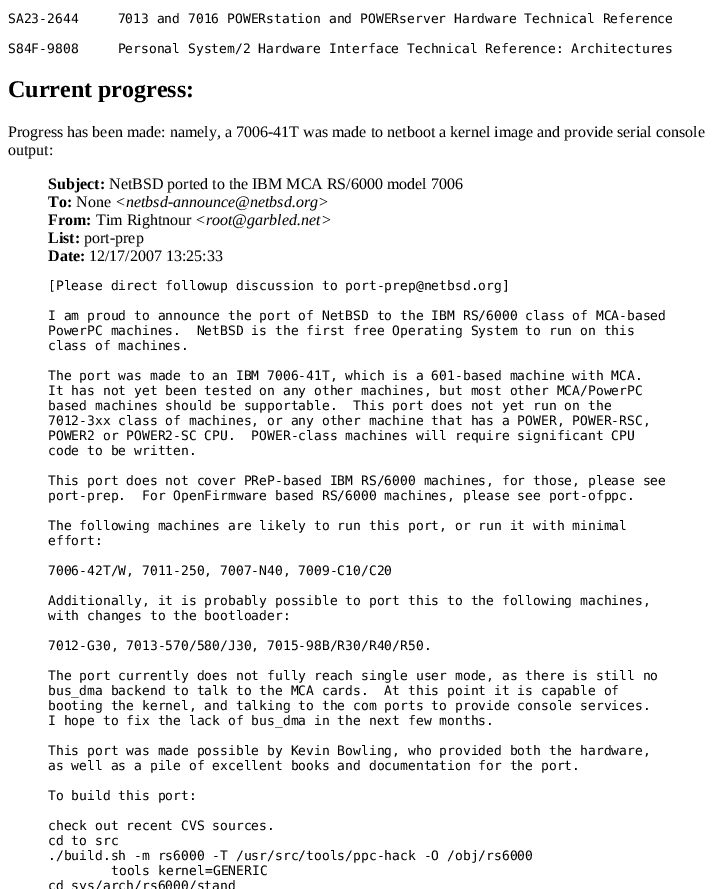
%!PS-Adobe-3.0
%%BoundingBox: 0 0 713 889
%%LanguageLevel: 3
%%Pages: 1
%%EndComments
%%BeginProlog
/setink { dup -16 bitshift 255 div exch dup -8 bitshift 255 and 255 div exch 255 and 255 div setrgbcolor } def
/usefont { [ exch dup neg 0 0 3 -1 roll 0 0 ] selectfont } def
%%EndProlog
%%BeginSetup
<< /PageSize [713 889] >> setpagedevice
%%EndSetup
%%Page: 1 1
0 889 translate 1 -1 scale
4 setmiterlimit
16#FFFFFF setink
0 0 713 889 rectfill
/DejaVuSansMono-Regular 13 usefont
16#000000 setink
8 23 moveto (SA23-2644     7013 and 7016 POWERstation and POWERserver Hardware Technical Reference) show
8 53 moveto (S84F-9808     Personal System/2 Hardware Interface Technical Reference: Architectures) show
/LiberationSerif-Bold 24 usefont
8 97 moveto (Current progress:) show
/LiberationSerif-Regular 16 usefont
8 137 moveto (Progress has been made: namely, a 7006-41T was made to netboot a kernel image and provide serial console) show
8 155 moveto (output:) show
/LiberationSerif-Bold 16 usefont
48 189 moveto (Subject:) show
/LiberationSerif-Regular 16 usefont
109 189 moveto (NetBSD ported to the IBM MCA RS/6000 model 7006) show
/LiberationSerif-Bold 16 usefont
48 207 moveto (To:) show
/LiberationSerif-Regular 16 usefont
76 207 moveto (None) show
/LiberationSerif-Italic 16 usefont
115 207 moveto (<netbsd-announce@netbsd.org>) show
/LiberationSerif-Bold 16 usefont
48 225 moveto (From:) show
/LiberationSerif-Regular 16 usefont
96 225 moveto (Tim Rightnour) show
/LiberationSerif-Italic 16 usefont
195 225 moveto (<root@garbled.net>) show
/LiberationSerif-Bold 16 usefont
48 243 moveto (List:) show
/LiberationSerif-Regular 16 usefont
84 243 moveto (port-prep) show
/LiberationSerif-Bold 16 usefont
48 261 moveto (Date:) show
/LiberationSerif-Regular 16 usefont
89 261 moveto (12/17/2007 13:25:33) show
/DejaVuSansMono-Regular 13 usefont
[
    [([Please direct followup discussion to port-prep@netbsd.org]) 48 290]
    [(I am proud to announce the port of NetBSD to the IBM RS/6000 class of MCA-based) 48 320]
    [(PowerPC machines.  NetBSD is the first free Operating System to run on this) 48 335]
    [(class of machines.) 48 350]
    [(The port was made to an IBM 7006-41T, which is a 601-based machine with MCA.) 48 380]
    [(It has not yet been tested on any other machines, but most other MCA/PowerPC) 48 395]
    [(based machines should be supportable.  This port does not yet run on the) 48 410]
    [(7012-3xx class of machines, or any other machine that has a POWER, POWER-RSC,) 48 425]
    [(POWER2 or POWER2-SC CPU.  POWER-class machines will require significant CPU) 48 440]
    [(code to be written.) 48 455]
    [(This port does not cover PReP-based IBM RS/6000 machines, for those, please see) 48 485]
    [(port-prep.  For OpenFirmware based RS/6000 machines, please see port-ofppc.) 48 500]
    [(The following machines are likely to run this port, or run it with minimal) 48 530]
    [(effort:) 48 545]
    [(7006-42T/W, 7011-250, 7007-N40, 7009-C10/C20) 48 575]
    [(Additionally, it is probably possible to port this to the following machines,) 48 605]
    [(with changes to the bootloader:) 48 620]
    [(7012-G30, 7013-570/580/J30, 7015-98B/R30/R40/R50.) 48 650]
    [(The port currently does not fully reach single user mode, as there is still no) 48 680]
    [(bus_dma backend to talk to the MCA cards.  At this point it is capable of) 48 695]
    [(booting the kernel, and talking to the com ports to provide console services.) 48 710]
    [(I hope to fix the lack of bus_dma in the next few months.) 48 725]
    [(This port was made possible by Kevin Bowling, who provided both the hardware,) 48 755]
    [(as well as a pile of excellent books and documentation for the port.) 48 770]
    [(To build this port:) 48 800]
    [(check out recent CVS sources.) 48 830]
    [(cd to src) 48 845]
    [(./build.sh -m rs6000 -T /usr/src/tools/ppc-hack -O /obj/rs6000) 48 860]
    [(tools kernel=GENERIC) 111 875]
    [(cd sys/arch/rs6000/stand) 48 890]
] { aload pop moveto show } forall
showpage
%%EOF
